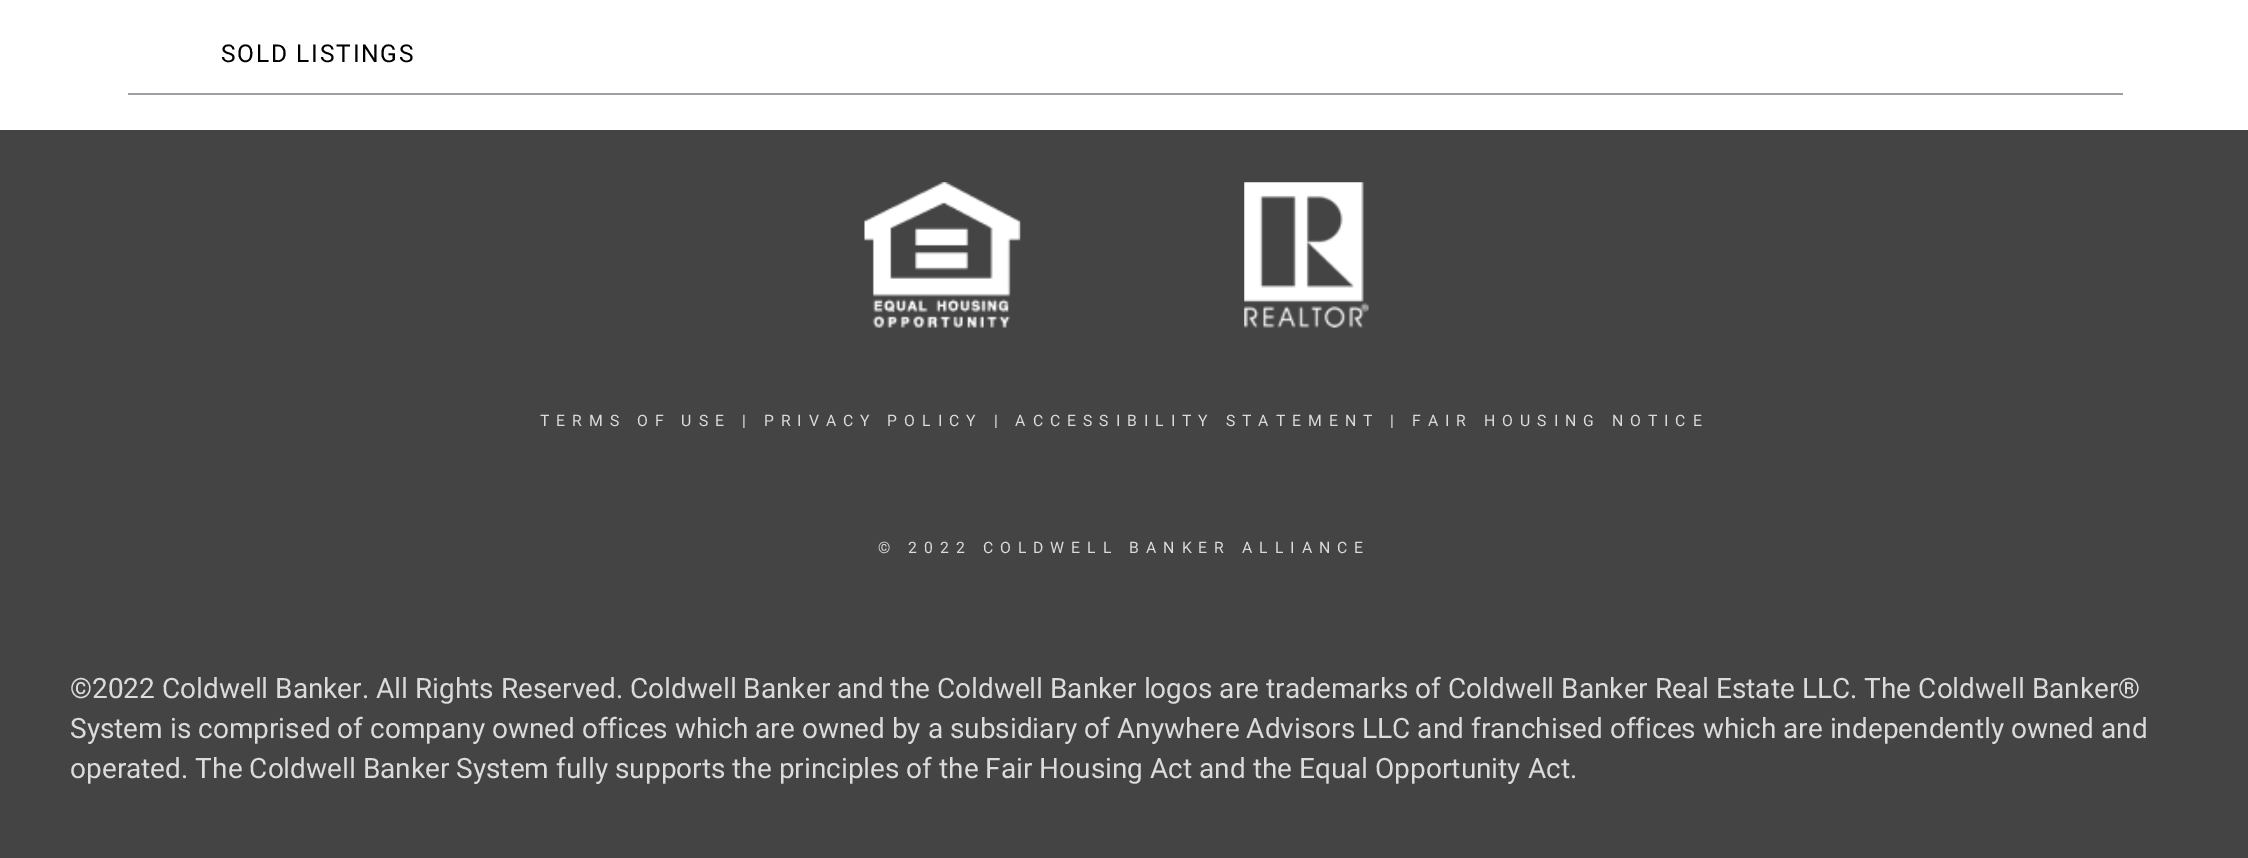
%!PS-Adobe-3.0
%%BoundingBox: 0 0 2248 858
%%LanguageLevel: 3
%%Pages: 1
%%EndComments
%%BeginProlog
/setink { dup -16 bitshift 255 div exch dup -8 bitshift 255 and 255 div exch 255 and 255 div setrgbcolor } def
/usefont { [ exch dup neg 0 0 3 -1 roll 0 0 ] selectfont } def
/drawimage { 5 dict begin { /h /w /y /x /name } { exch def } forall
  gsave x y translate w h scale
  w h 8 [w 0 0 h 0 0] name (r) file false 3 colorimage grestore end } def
%%EndProlog
%%BeginSetup
<< /PageSize [2248 858] >> setpagedevice
%%EndSetup
%%Page: 1 1
0 858 translate 1 -1 scale
4 setmiterlimit
16#FFFFFF setink
0 0 2248 858 rectfill
16#9E9EA3 setink
128 93 1995 2 rectfill
/Roboto-Regular 24.5 usefont
16#000000 setink
221 62 moveto 1.75 0 (SOLD LISTINGS) ashow
16#444444 setink
0 130 2248 728 rectfill
(img1.raw) 864 182 157 146 drawimage
(img2.raw) 1244 182 125 146 drawimage
/Roboto-Regular 15.75 usefont
16#DBDBDB setink
540 426 moveto 7 0 (TERMS OF USE | PRIVACY POLICY | ACCESSIBILITY STATEMENT | FAIR HOUSING NOTICE) ashow
878 553 moveto 7 0 (© 2022 COLDWELL BANKER ALLIANCE) ashow
/Roboto-Regular 28 usefont
[
    [(©2022 Coldwell Banker. All Rights Reserved. Coldwell Banker and the Coldwell Banker logos are trademarks of Coldwell Banker Real Estate LLC. The Coldwell Banker®) 70 698]
    [(System is comprised of company owned offices which are owned by a subsidiary of Anywhere Advisors LLC and franchised offices which are independently owned and) 70 738]
    [(operated. The Coldwell Banker System fully supports the principles of the Fair Housing Act and the Equal Opportunity Act.) 70 778]
] { aload pop moveto show } forall
showpage
%%EOF
